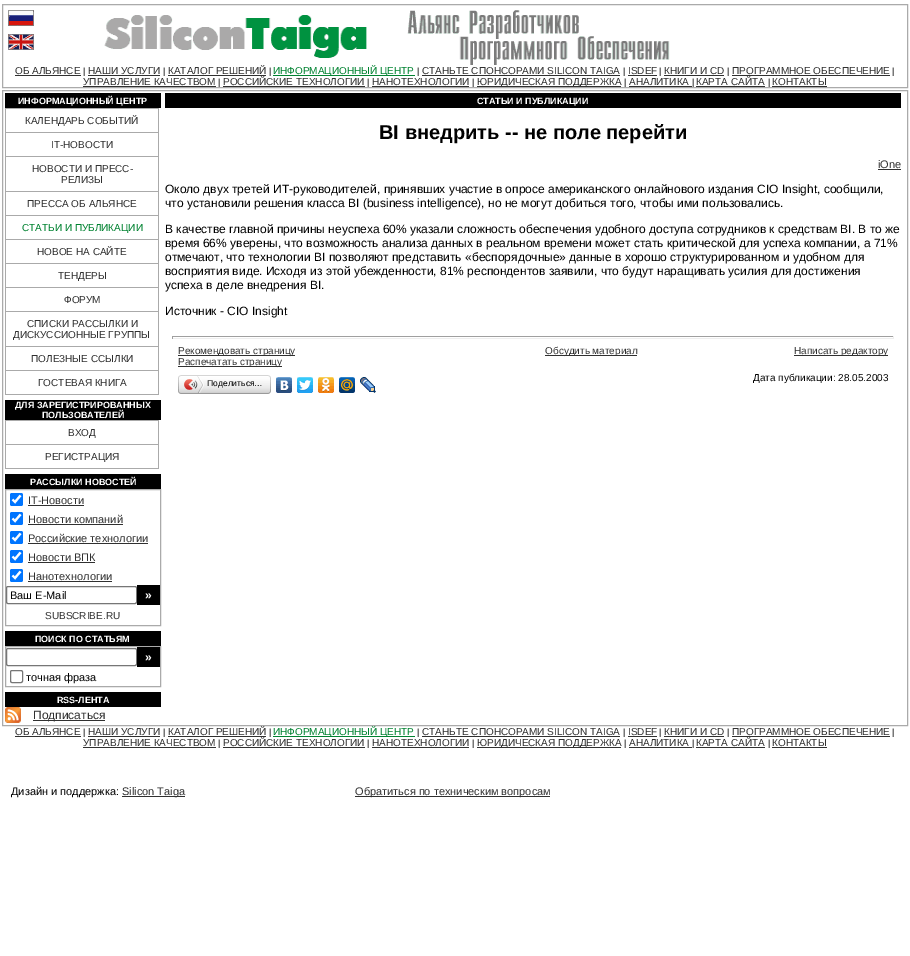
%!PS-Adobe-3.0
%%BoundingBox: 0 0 910 956
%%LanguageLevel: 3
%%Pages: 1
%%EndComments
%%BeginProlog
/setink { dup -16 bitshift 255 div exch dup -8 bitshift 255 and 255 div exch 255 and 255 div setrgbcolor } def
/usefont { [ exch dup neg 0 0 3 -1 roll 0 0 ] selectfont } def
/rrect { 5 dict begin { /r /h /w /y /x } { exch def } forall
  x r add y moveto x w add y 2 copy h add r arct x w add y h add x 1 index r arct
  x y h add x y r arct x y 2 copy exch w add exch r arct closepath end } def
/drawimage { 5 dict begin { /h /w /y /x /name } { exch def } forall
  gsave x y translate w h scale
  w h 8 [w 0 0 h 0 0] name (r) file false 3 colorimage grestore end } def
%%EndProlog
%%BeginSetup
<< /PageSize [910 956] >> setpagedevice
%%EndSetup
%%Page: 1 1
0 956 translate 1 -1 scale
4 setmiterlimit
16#FFFFFF setink
0 0 910 956 rectfill
16#AAAAAA setink
2.5 4.5 905 83 rectstroke
(img1.raw) 8 10 26 16 drawimage
(img2.raw) 8 34 26 16 drawimage
(img3.raw) 104 10 566 55 drawimage
/LiberationSans-Regular 10 usefont
16#303030 setink
15 74 moveto (ОБ АЛЬЯНСЕ) show
15 75 66 1 rectfill
/LiberationSans-Regular 9 usefont
16#000000 setink
83 74 moveto (|) show
/LiberationSans-Regular 10 usefont
16#303030 setink
88 74 moveto (НАШИ УСЛУГИ) show
88 75 72 1 rectfill
/LiberationSans-Regular 9 usefont
16#000000 setink
163 74 moveto (|) show
/LiberationSans-Regular 10 usefont
16#303030 setink
168 74 moveto (КАТАЛОГ РЕШЕНИЙ) show
168 75 98 1 rectfill
/LiberationSans-Regular 9 usefont
16#000000 setink
269 74 moveto (|) show
16#008230 setink
273 75 142 1 rectfill
/LiberationSans-Regular 10 usefont
273 74 moveto (ИНФОРМАЦИОННЫЙ ЦЕНТР) show
/LiberationSans-Regular 9 usefont
16#000000 setink
417 74 moveto (|) show
/LiberationSans-Regular 10 usefont
16#303030 setink
422 74 moveto (СТАНЬТЕ СПОНСОРАМИ SILICON TAIGA) show
422 75 198 1 rectfill
/LiberationSans-Regular 9 usefont
16#000000 setink
623 74 moveto (|) show
/LiberationSans-Regular 10 usefont
16#303030 setink
628 74 moveto (ISDEF) show
628 75 29 1 rectfill
/LiberationSans-Regular 9 usefont
16#000000 setink
659 74 moveto (|) show
/LiberationSans-Regular 10 usefont
16#303030 setink
664 74 moveto (КНИГИ И CD) show
664 75 60 1 rectfill
/LiberationSans-Regular 9 usefont
16#000000 setink
727 74 moveto (|) show
/LiberationSans-Regular 10 usefont
16#303030 setink
732 74 moveto (ПРОГРАММНОЕ ОБЕСПЕЧЕНИЕ) show
732 75 158 1 rectfill
/LiberationSans-Regular 9 usefont
16#000000 setink
892 74 moveto (|) show
/LiberationSans-Regular 10 usefont
16#303030 setink
83 85 moveto (УПРАВЛЕНИЕ КАЧЕСТВОМ) show
83 86 133 1 rectfill
/LiberationSans-Regular 9 usefont
16#000000 setink
218 85 moveto (|) show
/LiberationSans-Regular 10 usefont
16#303030 setink
223 85 moveto (РОССИЙСКИЕ ТЕХНОЛОГИИ) show
223 86 142 1 rectfill
/LiberationSans-Regular 9 usefont
16#000000 setink
367 85 moveto (|) show
/LiberationSans-Regular 10 usefont
16#303030 setink
372 85 moveto (НАНОТЕХНОЛОГИИ) show
372 86 97 1 rectfill
/LiberationSans-Regular 9 usefont
16#000000 setink
472 85 moveto (|) show
16#303030 setink
477 86 144 1 rectfill
/LiberationSans-Regular 10 usefont
477 85 moveto (ЮРИДИЧЕСКАЯ ПОДДЕРЖКА) show
/LiberationSans-Regular 9 usefont
16#000000 setink
624 85 moveto (|) show
/LiberationSans-Regular 10 usefont
16#303030 setink
629 85 moveto (АНАЛИТИКА) show
629 86 63 1 rectfill
/LiberationSans-Regular 9 usefont
16#000000 setink
692 85 moveto (|) show
/LiberationSans-Regular 10 usefont
16#303030 setink
696 85 moveto (КАРТА САЙТА) show
696 86 69 1 rectfill
/LiberationSans-Regular 9 usefont
16#000000 setink
768 85 moveto (|) show
/LiberationSans-Regular 10 usefont
16#303030 setink
772 85 moveto (КОНТАКТЫ) show
772 86 55 1 rectfill
16#AAAAAA setink
2.5 90.5 905 635 rectstroke
16#000000 setink
5 93 156 15 rectfill
/LiberationSans-Bold 9 usefont
16#FFFFFF setink
18 104 moveto (ИНФОРМАЦИОННЫЙ ЦЕНТР) show
[
    [5 108 154 1 16#AAAAAA]
    [158 108 1 287 16#AAAAAA]
    [5 394 154 1 16#AAAAAA]
    [5 108 1 287 16#AAAAAA]
] { aload pop setink rectfill } forall
/LiberationSans-Regular 10 usefont
16#303030 setink
25 124 moveto (КАЛЕНДАРЬ СОБЫТИЙ) show
16#AAAAAA setink
5 132 154 1 rectfill
16#303030 setink
51 148 moveto (IT-НОВОСТИ) show
16#AAAAAA setink
5 156 154 1 rectfill
16#303030 setink
32 172 moveto (НОВОСТИ И ПРЕСС-) show
61 183 moveto (РЕЛИЗЫ) show
16#AAAAAA setink
5 191 154 1 rectfill
16#303030 setink
27 207 moveto (ПРЕССА ОБ АЛЬЯНСЕ) show
16#AAAAAA setink
5 215 154 1 rectfill
16#008230 setink
22 231 moveto (СТАТЬИ И ПУБЛИКАЦИИ) show
16#AAAAAA setink
5 239 154 1 rectfill
16#303030 setink
37 255 moveto (НОВОЕ НА САЙТЕ) show
16#AAAAAA setink
5 263 154 1 rectfill
16#303030 setink
58 279 moveto (ТЕНДЕРЫ) show
16#AAAAAA setink
5 287 154 1 rectfill
16#303030 setink
64 303 moveto (ФОРУМ) show
16#AAAAAA setink
5 311 154 1 rectfill
16#303030 setink
27 327 moveto (СПИСКИ РАССЫЛКИ И) show
13 338 moveto (ДИСКУССИОННЫЕ ГРУППЫ) show
16#AAAAAA setink
5 346 154 1 rectfill
16#303030 setink
31 362 moveto (ПОЛЕЗНЫЕ ССЫЛКИ) show
16#AAAAAA setink
5 370 154 1 rectfill
16#303030 setink
38 386 moveto (ГОСТЕВАЯ КНИГА) show
16#000000 setink
5 400 156 20 rectfill
/LiberationSans-Bold 9 usefont
16#FFFFFF setink
15 408 moveto (ДЛЯ ЗАРЕГИСТРИРОВАННЫХ) show
42 418 moveto (ПОЛЬЗОВАТЕЛЕЙ) show
[
    [5 420 154 1 16#AAAAAA]
    [158 420 1 49 16#AAAAAA]
    [5 468 154 1 16#AAAAAA]
    [5 420 1 49 16#AAAAAA]
] { aload pop setink rectfill } forall
/LiberationSans-Regular 10 usefont
16#303030 setink
68 436 moveto (ВХОД) show
16#AAAAAA setink
5 444 154 1 rectfill
16#303030 setink
45 460 moveto (РЕГИСТРАЦИЯ) show
16#000000 setink
5 474 156 15 rectfill
/LiberationSans-Bold 9 usefont
16#FFFFFF setink
30 485 moveto (РАССЫЛКИ НОВОСТЕЙ) show
16#AAAAAA setink
5.5 489.5 155 136 rectstroke
16#0075FF setink
10 493 13 13 2 rrect fill
16#FFFFFF setink
2.1 setlinewidth
12.5 499.5 moveto 15 502 lineto 20.5 495.5 lineto stroke
/LiberationSans-Regular 11 usefont
16#303030 setink
28 504 moveto (IT-Новости) show
28 505 56 1 rectfill
16#0075FF setink
10 512 13 13 2 rrect fill
16#FFFFFF setink
12.5 518.5 moveto 15 521 lineto 20.5 514.5 lineto stroke
16#303030 setink
28 523 moveto (Новости компаний) show
28 524 95 1 rectfill
16#0075FF setink
10 531 13 13 2 rrect fill
16#FFFFFF setink
12.5 537.5 moveto 15 540 lineto 20.5 533.5 lineto stroke
16#303030 setink
28 542 moveto (Российские технологии) show
28 543 120 1 rectfill
16#0075FF setink
10 550 13 13 2 rrect fill
16#FFFFFF setink
12.5 556.5 moveto 15 559 lineto 20.5 552.5 lineto stroke
16#303030 setink
28 561 moveto (Новости ВПК) show
28 562 67 1 rectfill
16#0075FF setink
10 569 13 13 2 rrect fill
16#FFFFFF setink
12.5 575.5 moveto 15 578 lineto 20.5 571.5 lineto stroke
16#303030 setink
28 580 moveto (Нанотехнологии) show
28 581 84 1 rectfill
16#767676 setink
1 setlinewidth
6.5 586.5 130 17 1.5 rrect stroke
16#000000 setink
10 599 moveto (Ваш E-Mail) show
137 585 23 20 rectfill
/LiberationSans-Bold 12 usefont
16#FFFFFF setink
145 599 moveto (») show
/LiberationSans-Regular 10 usefont
16#303030 setink
45 619 moveto (SUBSCRIBE.RU) show
16#000000 setink
5 631 156 15 rectfill
/LiberationSans-Bold 9 usefont
16#FFFFFF setink
35 642 moveto (ПОИСК ПО СТАТЬЯМ) show
16#AAAAAA setink
5.5 646.5 155 40 rectstroke
16#767676 setink
6.5 648.5 130 17 1.5 rrect stroke
16#000000 setink
137 647 23 20 rectfill
/LiberationSans-Bold 12 usefont
16#FFFFFF setink
145 661 moveto (») show
16#767676 setink
10.5 670.5 12 12 1.5 rrect stroke
/LiberationSans-Regular 11 usefont
16#000000 setink
26 681 moveto (точная фраза) show
5 692 156 15 rectfill
/LiberationSans-Bold 9 usefont
16#FFFFFF setink
57 703 moveto (RSS-ЛЕНТА) show
(img4.raw) 5 707 16 16 drawimage
16#303030 setink
33 720 72 1 rectfill
/LiberationSans-Regular 12 usefont
33 719 moveto (Подписаться) show
16#000000 setink
165 93 736 15 rectfill
/LiberationSans-Bold 9 usefont
16#FFFFFF setink
477 104 moveto (СТАТЬИ И ПУБЛИКАЦИИ) show
/LiberationSans-Bold 20 usefont
16#000000 setink
379 139 moveto (BI внедрить -- не поле перейти) show
/LiberationSans-Regular 11 usefont
16#303030 setink
878 168 moveto (iOne) show
878 169 23 1 rectfill
/LiberationSans-Regular 12 usefont
16#000000 setink
[
    [(Около двух третей ИТ-руководителей, принявших участие в опросе американского онлайнового издания CIO Insight, сообщили,) 165 193]
    [(что установили решения класса BI \(business intelligence\), но не могут добиться того, чтобы ими пользовались.) 165 207]
    [(В качестве главной причины неуспеха 60% указали сложность обеспечения удобного доступа сотрудников к средствам BI. В то же) 165 233]
    [(время 66% уверены, что возможность анализа данных в реальном времени может стать критической для успеха компании, а 71%) 165 247]
    [(отмечают, что технологии BI позволяют представить «беспорядочные» данные в хорошо структурированном и удобном для) 165 261]
    [(восприятия виде. Исходя из этой убежденности, 81% респондентов заявили, что будут наращивать усилия для достижения) 165 275]
    [(успеха в деле внедрения BI.) 165 289]
    [(Источник - CIO Insight) 165 315]
] { aload pop moveto show } forall
[
    [172 336 722 1 16#9F9F9F]
    [893 336 1 3 16#EEEEEE]
    [172 338 722 1 16#EEEEEE]
    [172 336 1 3 16#9F9F9F]
    [178 355 117 1 16#303030]
] { aload pop setink rectfill } forall
/LiberationSans-Regular 10 usefont
178 354 moveto (Рекомендовать страницу) show
545 355 92 1 rectfill
545 354 moveto (Обсудить материал) show
794 355 94 1 rectfill
794 354 moveto (Написать редактору) show
178 366 104 1 rectfill
178 365 moveto (Распечатать страницу) show
(img5.raw) 181 375 87 19 drawimage
(img6.raw) 178 375 3 19 drawimage
(img7.raw) 184 376 20 17 drawimage
/LiberationSans-Regular 8.5 usefont
16#000000 setink
207 386 moveto (Поделиться…) show
(img8.raw) 268 375 3 19 drawimage
(img9.raw) 276 377 16 16 drawimage
(img10.raw) 297 377 16 16 drawimage
(img11.raw) 318 377 16 16 drawimage
(img12.raw) 339 377 16 16 drawimage
(img13.raw) 360 377 16 16 drawimage
/LiberationSans-Regular 10 usefont
753 381 moveto (Дата публикации: 28.05.2003) show
16#303030 setink
15 735 moveto (ОБ АЛЬЯНСЕ) show
15 736 66 1 rectfill
/LiberationSans-Regular 9 usefont
16#000000 setink
83 735 moveto (|) show
/LiberationSans-Regular 10 usefont
16#303030 setink
88 735 moveto (НАШИ УСЛУГИ) show
88 736 72 1 rectfill
/LiberationSans-Regular 9 usefont
16#000000 setink
163 735 moveto (|) show
/LiberationSans-Regular 10 usefont
16#303030 setink
168 735 moveto (КАТАЛОГ РЕШЕНИЙ) show
168 736 98 1 rectfill
/LiberationSans-Regular 9 usefont
16#000000 setink
269 735 moveto (|) show
16#008230 setink
273 736 142 1 rectfill
/LiberationSans-Regular 10 usefont
273 735 moveto (ИНФОРМАЦИОННЫЙ ЦЕНТР) show
/LiberationSans-Regular 9 usefont
16#000000 setink
417 735 moveto (|) show
/LiberationSans-Regular 10 usefont
16#303030 setink
422 735 moveto (СТАНЬТЕ СПОНСОРАМИ SILICON TAIGA) show
422 736 198 1 rectfill
/LiberationSans-Regular 9 usefont
16#000000 setink
623 735 moveto (|) show
/LiberationSans-Regular 10 usefont
16#303030 setink
628 735 moveto (ISDEF) show
628 736 29 1 rectfill
/LiberationSans-Regular 9 usefont
16#000000 setink
659 735 moveto (|) show
/LiberationSans-Regular 10 usefont
16#303030 setink
664 735 moveto (КНИГИ И CD) show
664 736 60 1 rectfill
/LiberationSans-Regular 9 usefont
16#000000 setink
727 735 moveto (|) show
/LiberationSans-Regular 10 usefont
16#303030 setink
732 735 moveto (ПРОГРАММНОЕ ОБЕСПЕЧЕНИЕ) show
732 736 158 1 rectfill
/LiberationSans-Regular 9 usefont
16#000000 setink
892 735 moveto (|) show
/LiberationSans-Regular 10 usefont
16#303030 setink
83 746 moveto (УПРАВЛЕНИЕ КАЧЕСТВОМ) show
83 747 133 1 rectfill
/LiberationSans-Regular 9 usefont
16#000000 setink
218 746 moveto (|) show
/LiberationSans-Regular 10 usefont
16#303030 setink
223 746 moveto (РОССИЙСКИЕ ТЕХНОЛОГИИ) show
223 747 142 1 rectfill
/LiberationSans-Regular 9 usefont
16#000000 setink
367 746 moveto (|) show
/LiberationSans-Regular 10 usefont
16#303030 setink
372 746 moveto (НАНОТЕХНОЛОГИИ) show
372 747 97 1 rectfill
/LiberationSans-Regular 9 usefont
16#000000 setink
472 746 moveto (|) show
16#303030 setink
477 747 144 1 rectfill
/LiberationSans-Regular 10 usefont
477 746 moveto (ЮРИДИЧЕСКАЯ ПОДДЕРЖКА) show
/LiberationSans-Regular 9 usefont
16#000000 setink
624 746 moveto (|) show
/LiberationSans-Regular 10 usefont
16#303030 setink
629 746 moveto (АНАЛИТИКА) show
629 747 63 1 rectfill
/LiberationSans-Regular 9 usefont
16#000000 setink
692 746 moveto (|) show
/LiberationSans-Regular 10 usefont
16#303030 setink
696 746 moveto (КАРТА САЙТА) show
696 747 69 1 rectfill
/LiberationSans-Regular 9 usefont
16#000000 setink
768 746 moveto (|) show
/LiberationSans-Regular 10 usefont
16#303030 setink
772 746 moveto (КОНТАКТЫ) show
772 747 55 1 rectfill
/LiberationSans-Regular 11 usefont
16#000000 setink
11 795 moveto (Дизайн и поддержка:) show
16#303030 setink
122 796 63 1 rectfill
122 795 moveto (Silicon Taiga) show
355 796 195 1 rectfill
355 795 moveto (Обратиться по техническим вопросам) show
showpage
%%EOF
